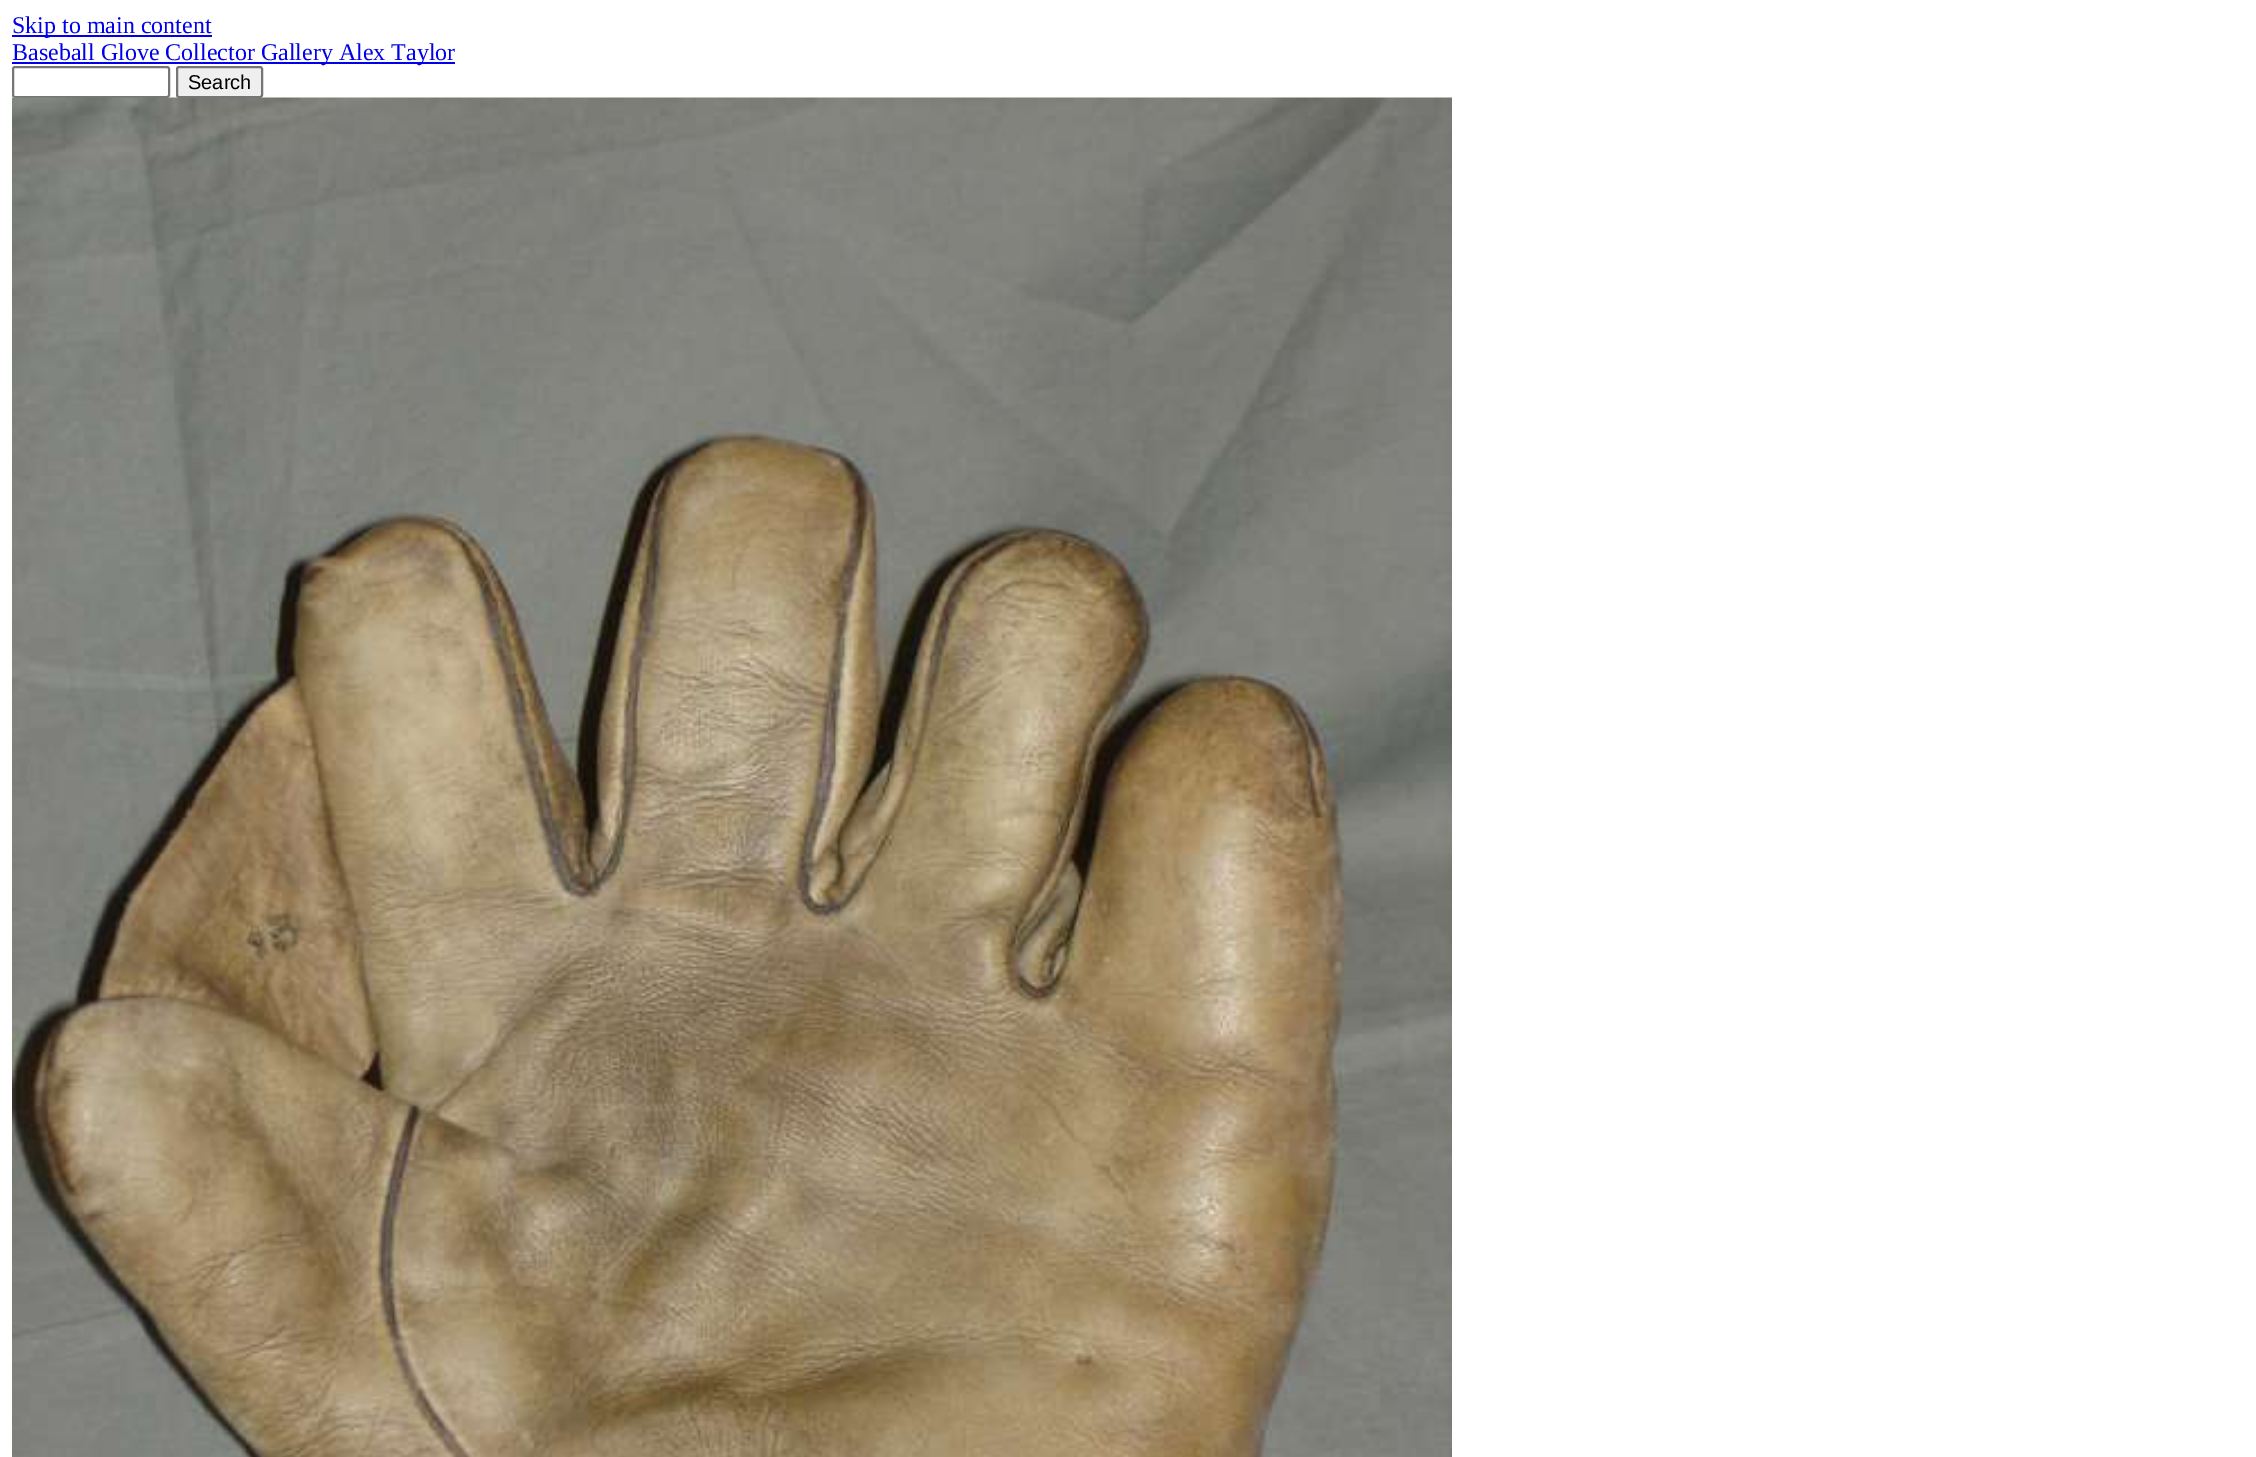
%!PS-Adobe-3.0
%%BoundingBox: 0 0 2256 1457
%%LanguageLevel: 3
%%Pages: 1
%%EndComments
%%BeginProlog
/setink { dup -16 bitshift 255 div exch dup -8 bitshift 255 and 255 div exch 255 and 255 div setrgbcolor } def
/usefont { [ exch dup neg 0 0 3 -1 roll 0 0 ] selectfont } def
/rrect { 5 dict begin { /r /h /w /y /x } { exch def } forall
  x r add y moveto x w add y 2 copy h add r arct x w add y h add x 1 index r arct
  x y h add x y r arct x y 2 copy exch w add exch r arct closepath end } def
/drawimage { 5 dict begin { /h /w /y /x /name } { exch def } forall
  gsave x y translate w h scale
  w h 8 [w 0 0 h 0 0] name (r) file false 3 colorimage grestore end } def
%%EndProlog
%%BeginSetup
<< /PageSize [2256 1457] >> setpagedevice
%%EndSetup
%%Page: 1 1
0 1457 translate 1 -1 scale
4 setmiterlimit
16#FFFFFF setink
0 0 2256 1457 rectfill
16#0000EE setink
12 35 200 2 rectfill
/LiberationSerif-Regular 24 usefont
12 33 moveto (Skip to main content) show
12 62 443 2 rectfill
12 60 moveto (Baseball Glove Collector Gallery Alex Taylor) show
16#767676 setink
2 setlinewidth
13 67 156 30 2 rrect stroke
(img1.raw) 12 97 1440 1360 drawimage
16#EFEFEF setink
177 67 85 30 2 rrect gsave fill grestore
16#767676 setink
stroke
/LiberationSans-Regular 20 usefont
16#000000 setink
188 89 moveto (Search) show
showpage
%%EOF
